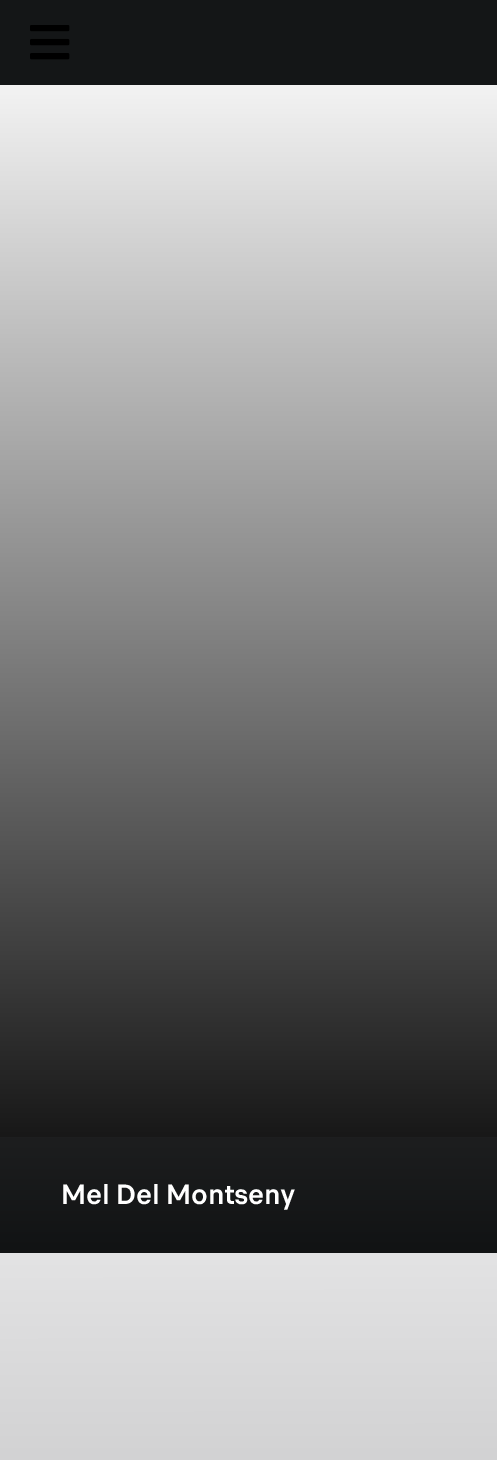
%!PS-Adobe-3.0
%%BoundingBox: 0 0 497 1460
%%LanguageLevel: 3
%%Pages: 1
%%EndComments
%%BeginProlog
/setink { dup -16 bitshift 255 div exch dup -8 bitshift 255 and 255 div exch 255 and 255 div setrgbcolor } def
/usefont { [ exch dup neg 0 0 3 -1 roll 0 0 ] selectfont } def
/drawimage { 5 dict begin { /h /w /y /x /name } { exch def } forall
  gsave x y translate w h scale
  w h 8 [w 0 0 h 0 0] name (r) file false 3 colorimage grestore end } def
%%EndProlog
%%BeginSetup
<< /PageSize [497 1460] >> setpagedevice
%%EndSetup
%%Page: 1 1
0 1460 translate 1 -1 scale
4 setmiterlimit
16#FFFFFF setink
0 0 497 1460 rectfill
16#141617 setink
0 0 497 85 rectfill
(img1.raw) 30 25 40 35 drawimage
gsave 0 85 moveto 497 85 lineto 497 1137 lineto 0 1137 lineto closepath clip newpath
<< /ShadingType 2 /ColorSpace /DeviceRGB /Coords [249 1253 249 85] /Extend [true true] /Function << /FunctionType 2 /Domain [0 1] /C0 [0 0 0] /C1 [0.953 0.953 0.953] /N 1 >> >> shfill grestore
gsave 0 1137 moveto 497 1137 lineto 497 1253 lineto 0 1253 lineto closepath clip newpath
<< /ShadingType 2 /ColorSpace /DeviceRGB /Coords [249 1253 249 85] /Extend [true true] /Function << /FunctionType 2 /Domain [0 1] /C0 [0.067 0.075 0.078] /C1 [0.518 0.522 0.525] /N 1 >> >> shfill grestore
/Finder-Bold 30 usefont
16#FFFFFF setink
60 1204 moveto -0.5 0 (Mel Del Montseny) ashow
gsave 0 1253 moveto 497 1253 lineto 497 1460 lineto 0 1460 lineto closepath clip newpath
<< /ShadingType 2 /ColorSpace /DeviceRGB /Coords [248 1253 249 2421] /Extend [true true] /Function << /FunctionType 2 /Domain [0 1] /C0 [0.89 0.89 0.894] /C1 [0.51 0.51 0.51] /N 1 >> >> shfill grestore
showpage
%%EOF
